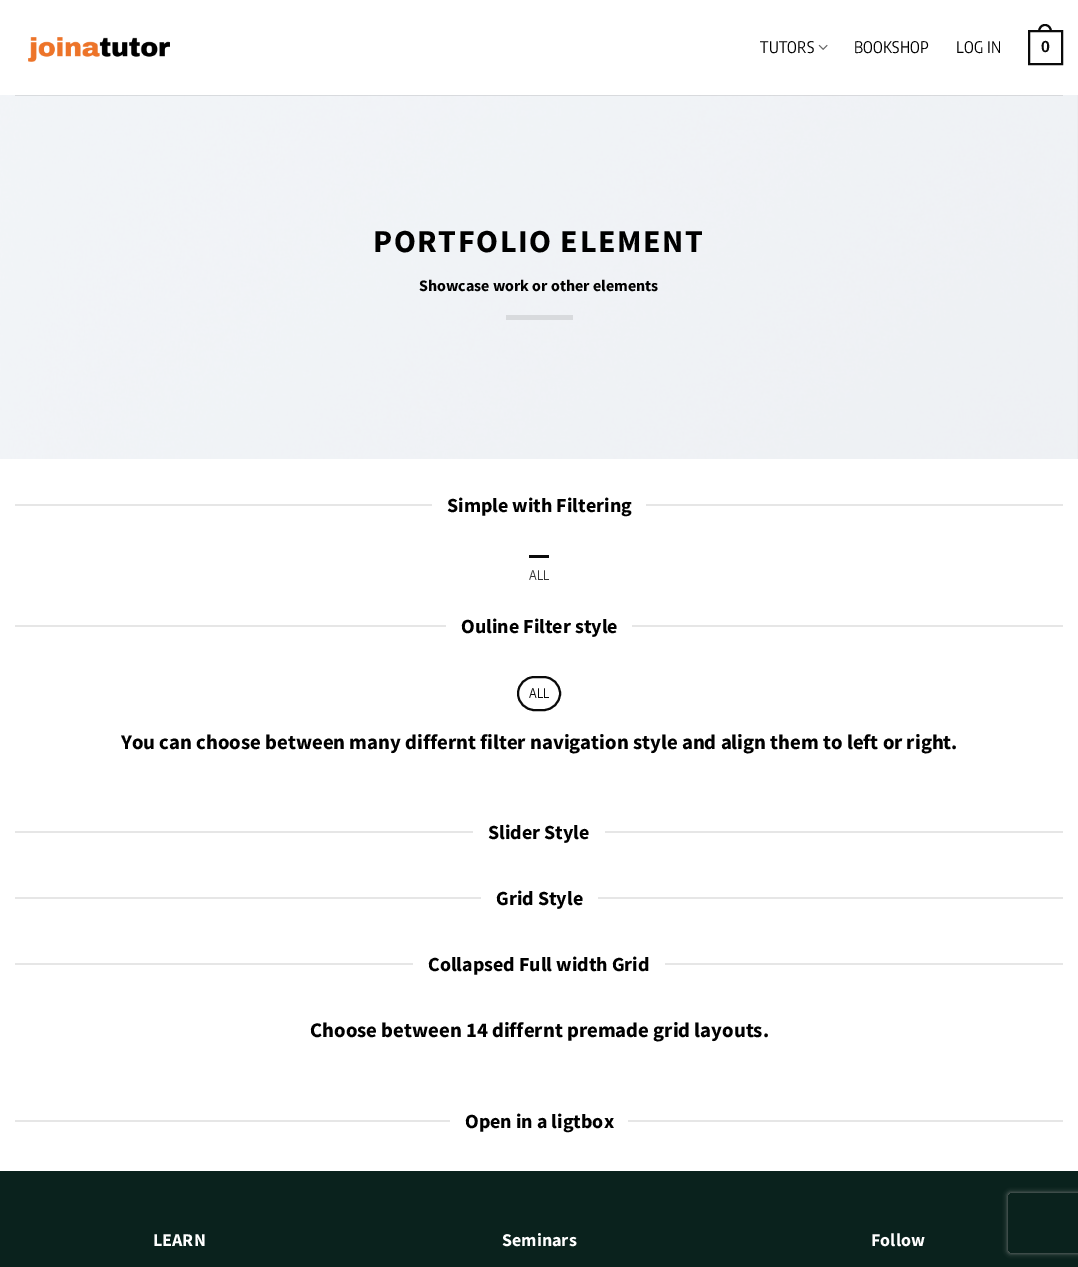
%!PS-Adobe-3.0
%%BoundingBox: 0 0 1078 1267
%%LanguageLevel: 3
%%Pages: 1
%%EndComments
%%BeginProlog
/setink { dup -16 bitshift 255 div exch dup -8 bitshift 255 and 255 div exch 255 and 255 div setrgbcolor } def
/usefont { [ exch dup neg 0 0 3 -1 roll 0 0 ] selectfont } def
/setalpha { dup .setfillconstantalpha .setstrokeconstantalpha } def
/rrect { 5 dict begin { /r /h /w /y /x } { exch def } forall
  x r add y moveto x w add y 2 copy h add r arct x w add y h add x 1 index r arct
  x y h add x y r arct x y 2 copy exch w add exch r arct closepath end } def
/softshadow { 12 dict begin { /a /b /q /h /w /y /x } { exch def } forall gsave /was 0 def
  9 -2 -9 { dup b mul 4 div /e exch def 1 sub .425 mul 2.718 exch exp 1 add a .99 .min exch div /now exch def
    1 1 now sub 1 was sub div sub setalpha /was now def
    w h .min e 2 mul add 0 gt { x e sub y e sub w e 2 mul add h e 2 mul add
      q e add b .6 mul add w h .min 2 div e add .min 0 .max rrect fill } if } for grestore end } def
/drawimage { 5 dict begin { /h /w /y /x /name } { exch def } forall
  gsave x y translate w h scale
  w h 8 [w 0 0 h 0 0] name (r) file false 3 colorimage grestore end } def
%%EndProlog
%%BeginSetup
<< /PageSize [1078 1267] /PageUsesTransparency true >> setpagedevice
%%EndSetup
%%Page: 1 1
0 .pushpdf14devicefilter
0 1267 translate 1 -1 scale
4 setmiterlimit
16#FFFFFF setink
0 0 1078 1267 rectfill
(img1.raw) 28 37 142 25 drawimage
/EncodeSansCondensed-Regular 16 usefont
16#000000 setink
760 53 moveto 0.25 0 (TUTORS) ashow
(img2.raw) 818 44 10 6 drawimage
854 53 moveto 0.25 0 (BOOKSHOP) ashow
956 53 moveto 0.25 0 (LOG IN) ashow
16#0A0A0A setink
2 setlinewidth
1029 31 33 33 rectstroke
1045 24 moveto 1049.5 24 1052 28 1052 32 curveto 1038 32 lineto 1038 28 1040.5 24 1045 24 curveto closepath 1045 26 moveto 1048.5 26 1050 29 1050 32 curveto 1040 32 lineto 1040 29 1041.5 26 1045 26 curveto closepath eofill
/LiberationSans-Bold 16 usefont
1041 52 moveto 0.25 0 (0) ashow
(img3.raw) 0 95 1078 364 drawimage
0.1 setalpha
16#000000 setink
15 95 1048 1 rectfill
/SourceSansPro-Bold 32 usefont
1 setalpha
373 252 moveto 1.6 0 (PORTFOLIO ELEMENT) ashow
/SourceSansPro-Bold 16 usefont
419 291 moveto (Showcase work or other elements) show
16#D8DADD setink
506 315 67 5 rectfill
16#E6E6E6 setink
15 504 417 2 rectfill
/SourceSansPro-Bold 20 usefont
16#000000 setink
447 512 moveto (Simple with Filtering) show
16#E6E6E6 setink
646 504 417 2 rectfill
16#0A0A0A setink
529 555 20 3 rectfill
/EncodeSansCondensed-Regular 13 usefont
16#363636 setink
529 580 moveto (ALL) show
16#E6E6E6 setink
15 625 431 2 rectfill
/SourceSansPro-Bold 20 usefont
16#000000 setink
461 633 moveto (Ouline Filter style) show
16#E6E6E6 setink
632 625 431 2 rectfill
16#0A0A0A setink
518 677 42 33 16.5 rrect stroke
/EncodeSansCondensed-Regular 13 usefont
529 698 moveto (ALL) show
/SourceSansPro-Bold 20.8 usefont
16#000000 setink
121 749 moveto (You can choose between many differnt filter navigation style and align them to left or right.) show
16#E6E6E6 setink
15 831 458 2 rectfill
/SourceSansPro-Bold 20 usefont
16#000000 setink
488 839 moveto (Slider Style) show
16#E6E6E6 setink
605 831 458 2 rectfill
15 897 466 2 rectfill
16#000000 setink
496 905 moveto (Grid Style) show
16#E6E6E6 setink
598 897 465 2 rectfill
15 963 398 2 rectfill
16#000000 setink
428 971 moveto (Collapsed Full width Grid) show
16#E6E6E6 setink
665 963 398 2 rectfill
/SourceSansPro-Bold 20.8 usefont
16#000000 setink
310 1037 moveto (Choose between 14 differnt premade grid layouts.) show
16#E6E6E6 setink
15 1120 435 2 rectfill
/SourceSansPro-Bold 20 usefont
16#000000 setink
465 1128 moveto (Open in a ligtbox) show
16#E6E6E6 setink
628 1120 435 2 rectfill
16#0A221D setink
0 1171 1078 96 rectfill
/SourceSansPro-Bold 18 usefont
16#FFFFFF setink
[
    [(LEARN) 153 1246]
    [(Seminars) 502 1246]
    [(Follow) 871 1246]
] { aload pop moveto show } forall
gsave
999 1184 moveto 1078 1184 lineto 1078 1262 lineto 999 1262 lineto closepath 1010 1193 moveto 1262 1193 lineto 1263 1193 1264 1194 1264 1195 curveto 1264 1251 lineto 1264 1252 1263 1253 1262 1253 curveto 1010 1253 lineto 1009 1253 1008 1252 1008 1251 curveto 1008 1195 lineto 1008 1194 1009 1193 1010 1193 curveto closepath eoclip newpath
16#808080 setink
1008 1193 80 60 2 2.5 1 softshadow
grestore
.poppdf14devicefilter showpage
%%EOF
